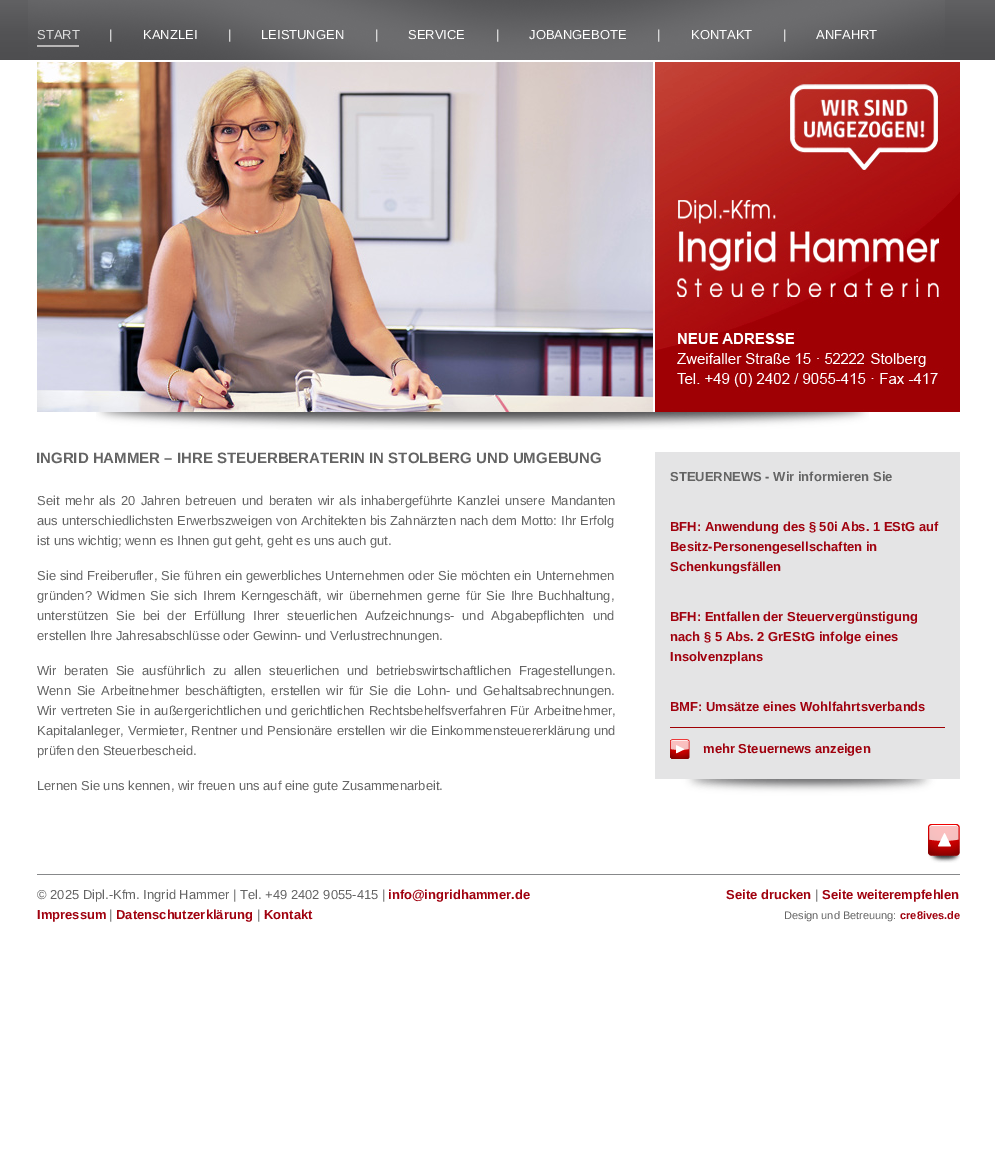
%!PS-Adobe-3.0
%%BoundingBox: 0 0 995 1159
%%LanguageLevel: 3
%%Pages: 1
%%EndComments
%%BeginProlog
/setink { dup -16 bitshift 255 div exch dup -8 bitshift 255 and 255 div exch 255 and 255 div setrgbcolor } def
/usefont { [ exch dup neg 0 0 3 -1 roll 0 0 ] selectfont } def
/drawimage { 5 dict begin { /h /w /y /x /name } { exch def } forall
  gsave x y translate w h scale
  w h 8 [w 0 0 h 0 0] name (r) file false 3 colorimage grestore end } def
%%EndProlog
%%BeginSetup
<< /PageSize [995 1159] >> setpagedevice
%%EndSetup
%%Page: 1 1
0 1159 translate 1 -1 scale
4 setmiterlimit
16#FFFFFF setink
0 0 995 1159 rectfill
(img1.raw) 0 0 995 60 drawimage
(img2.raw) 28 0 917 60 drawimage
/LiberationSans-Regular 13 usefont
16#DDDDDD setink
37 39 moveto (START) show
16#B8B6B6 setink
37 45 42 2 rectfill
16#FFFFFF setink
[
    [(|) 109 39]
    [(KANZLEI) 143 39]
    [(|) 228 39]
    [(LEISTUNGEN) 261 39]
    [(|) 375 39]
    [(SERVICE) 408 39]
    [(|) 496 39]
    [(JOBANGEBOTE) 529 39]
    [(|) 657 39]
    [(KONTAKT) 691 39]
    [(|) 783 39]
    [(ANFAHRT) 816 39]
] { aload pop moveto show } forall
(img3.raw) 37 62 616 350 drawimage
(img4.raw) 655 62 305 350 drawimage
(img5.raw) 96 412 773 18 drawimage
/LiberationSans-Bold 15 usefont
16#646464 setink
36 463 moveto (INGRID HAMMER – IHRE STEUERBERATERIN IN STOLBERG UND UMGEBUNG) show
/LiberationSans-Regular 13 usefont
37 505 moveto 1.5 0 32 (Seit mehr als 20 Jahren betreuen und beraten wir als inhabergeführte) widthshow
457 505 moveto 2 0 32 (Kanzlei unsere Mandanten) widthshow
37 525 moveto 0.25 0 32 (aus unterschiedlichsten Erwerbszweigen) widthshow
276 525 moveto 0.25 0 32 (von Architekten bis Zahnärzten nach dem Motto: Ihr Erfolg) widthshow
37 545 moveto (ist uns wichtig; wenn es Ihnen gut geht, geht es uns auch gut.) show
37 580 moveto 0.25 0 32 (Sie sind Freiberufler, Sie führen ein gewerbliches Unternehmen oder Sie möchten ein Unternehmen) widthshow
37 600 moveto 1.75 0 32 (gründen? Widmen Sie sich Ihrem Kerngeschäft, wir übernehmen gerne für Sie Ihre Buchhaltung,) widthshow
37 620 moveto 4 0 32 (unterstützen Sie bei der) widthshow
194 620 moveto 4 0 32 (Erfüllung Ihrer steuerlichen Aufzeichnungs- und Abgabepflichten) widthshow
593 620 moveto (und) show
37 640 moveto (erstellen Ihre Jahresabschlüsse oder Gewinn- und Verlustrechnungen.) show
37 675 moveto 4 0 32 (Wir beraten Sie ausführlich zu allen steuerlichen und betriebswirtschaftlichen Fragestellungen.) widthshow
37 695 moveto 2.1 0 32 (Wenn Sie Arbeitnehmer beschäftigten, erstellen wir für Sie die Lohn- und Gehaltsabrechnungen.) widthshow
37 715 moveto 0.75 0 32 (Wir vertreten Sie in außergerichtlichen und gerichtlichen Rechtsbehelfsverfahren Für Arbeitnehmer,) widthshow
37 735 moveto 0.25 0 32 (Kapitalanleger, Vermieter, Rentner und Pensionäre erstellen wir die Einkommensteuererklärung und) widthshow
37 755 moveto (prüfen den Steuerbescheid.) show
37 790 moveto (Lernen Sie uns kennen, wir freuen uns auf eine gute Zusammenarbeit.) show
16#E4E4E5 setink
655 452 305 327 rectfill
(img6.raw) 655 779 305 25 drawimage
/LiberationSans-Bold 13 usefont
16#646464 setink
670 481 moveto (STEUERNEWS - Wir informieren Sie) show
16#A0010E setink
[
    [(BFH: Anwendung des § 50i Abs. 1 EStG auf) 670 531]
    [(Besitz-Personengesellschaften in) 670 551]
    [(Schenkungsfällen) 670 571]
    [(BFH: Entfallen der Steuervergünstigung) 670 621]
    [(nach § 5 Abs. 2 GrEStG infolge eines) 670 641]
    [(Insolvenzplans) 670 661]
    [(BMF: Umsätze eines Wohlfahrtsverbands) 670 711]
] { aload pop moveto show } forall
16#9F0004 setink
670 727 275 1 rectfill
(img7.raw) 670 739 20 20 drawimage
16#A0010E setink
703 753 moveto (mehr Steuernews anzeigen) show
(img8.raw) 928 824 32 39 drawimage
16#87888A setink
37 874 923 1 rectfill
/LiberationSans-Regular 13 usefont
16#646464 setink
37 899 moveto (© 2025 Dipl.-Kfm. Ingrid Hammer | Tel. +49 2402 9055-415 |) show
/LiberationSans-Bold 13 usefont
16#A0010E setink
388 899 moveto (info@ingridhammer.de) show
37 919 moveto (Impressum) show
/LiberationSans-Regular 13 usefont
16#646464 setink
109 919 moveto (|) show
/LiberationSans-Bold 13 usefont
16#A0010E setink
116 919 moveto (Datenschutzerklärung) show
/LiberationSans-Regular 13 usefont
16#646464 setink
257 919 moveto (|) show
/LiberationSans-Bold 13 usefont
16#A0010E setink
264 919 moveto (Kontakt) show
726 899 moveto (Seite drucken) show
/LiberationSans-Regular 13 usefont
16#646464 setink
815 899 moveto (|) show
/LiberationSans-Bold 13 usefont
16#A0010E setink
822 899 moveto (Seite weiterempfehlen) show
/LiberationSans-Regular 11 usefont
16#646464 setink
784 919 moveto (Design und Betreuung:) show
/LiberationSans-Bold 11 usefont
16#A0010E setink
900 919 moveto (cre8ives.de) show
showpage
%%EOF
